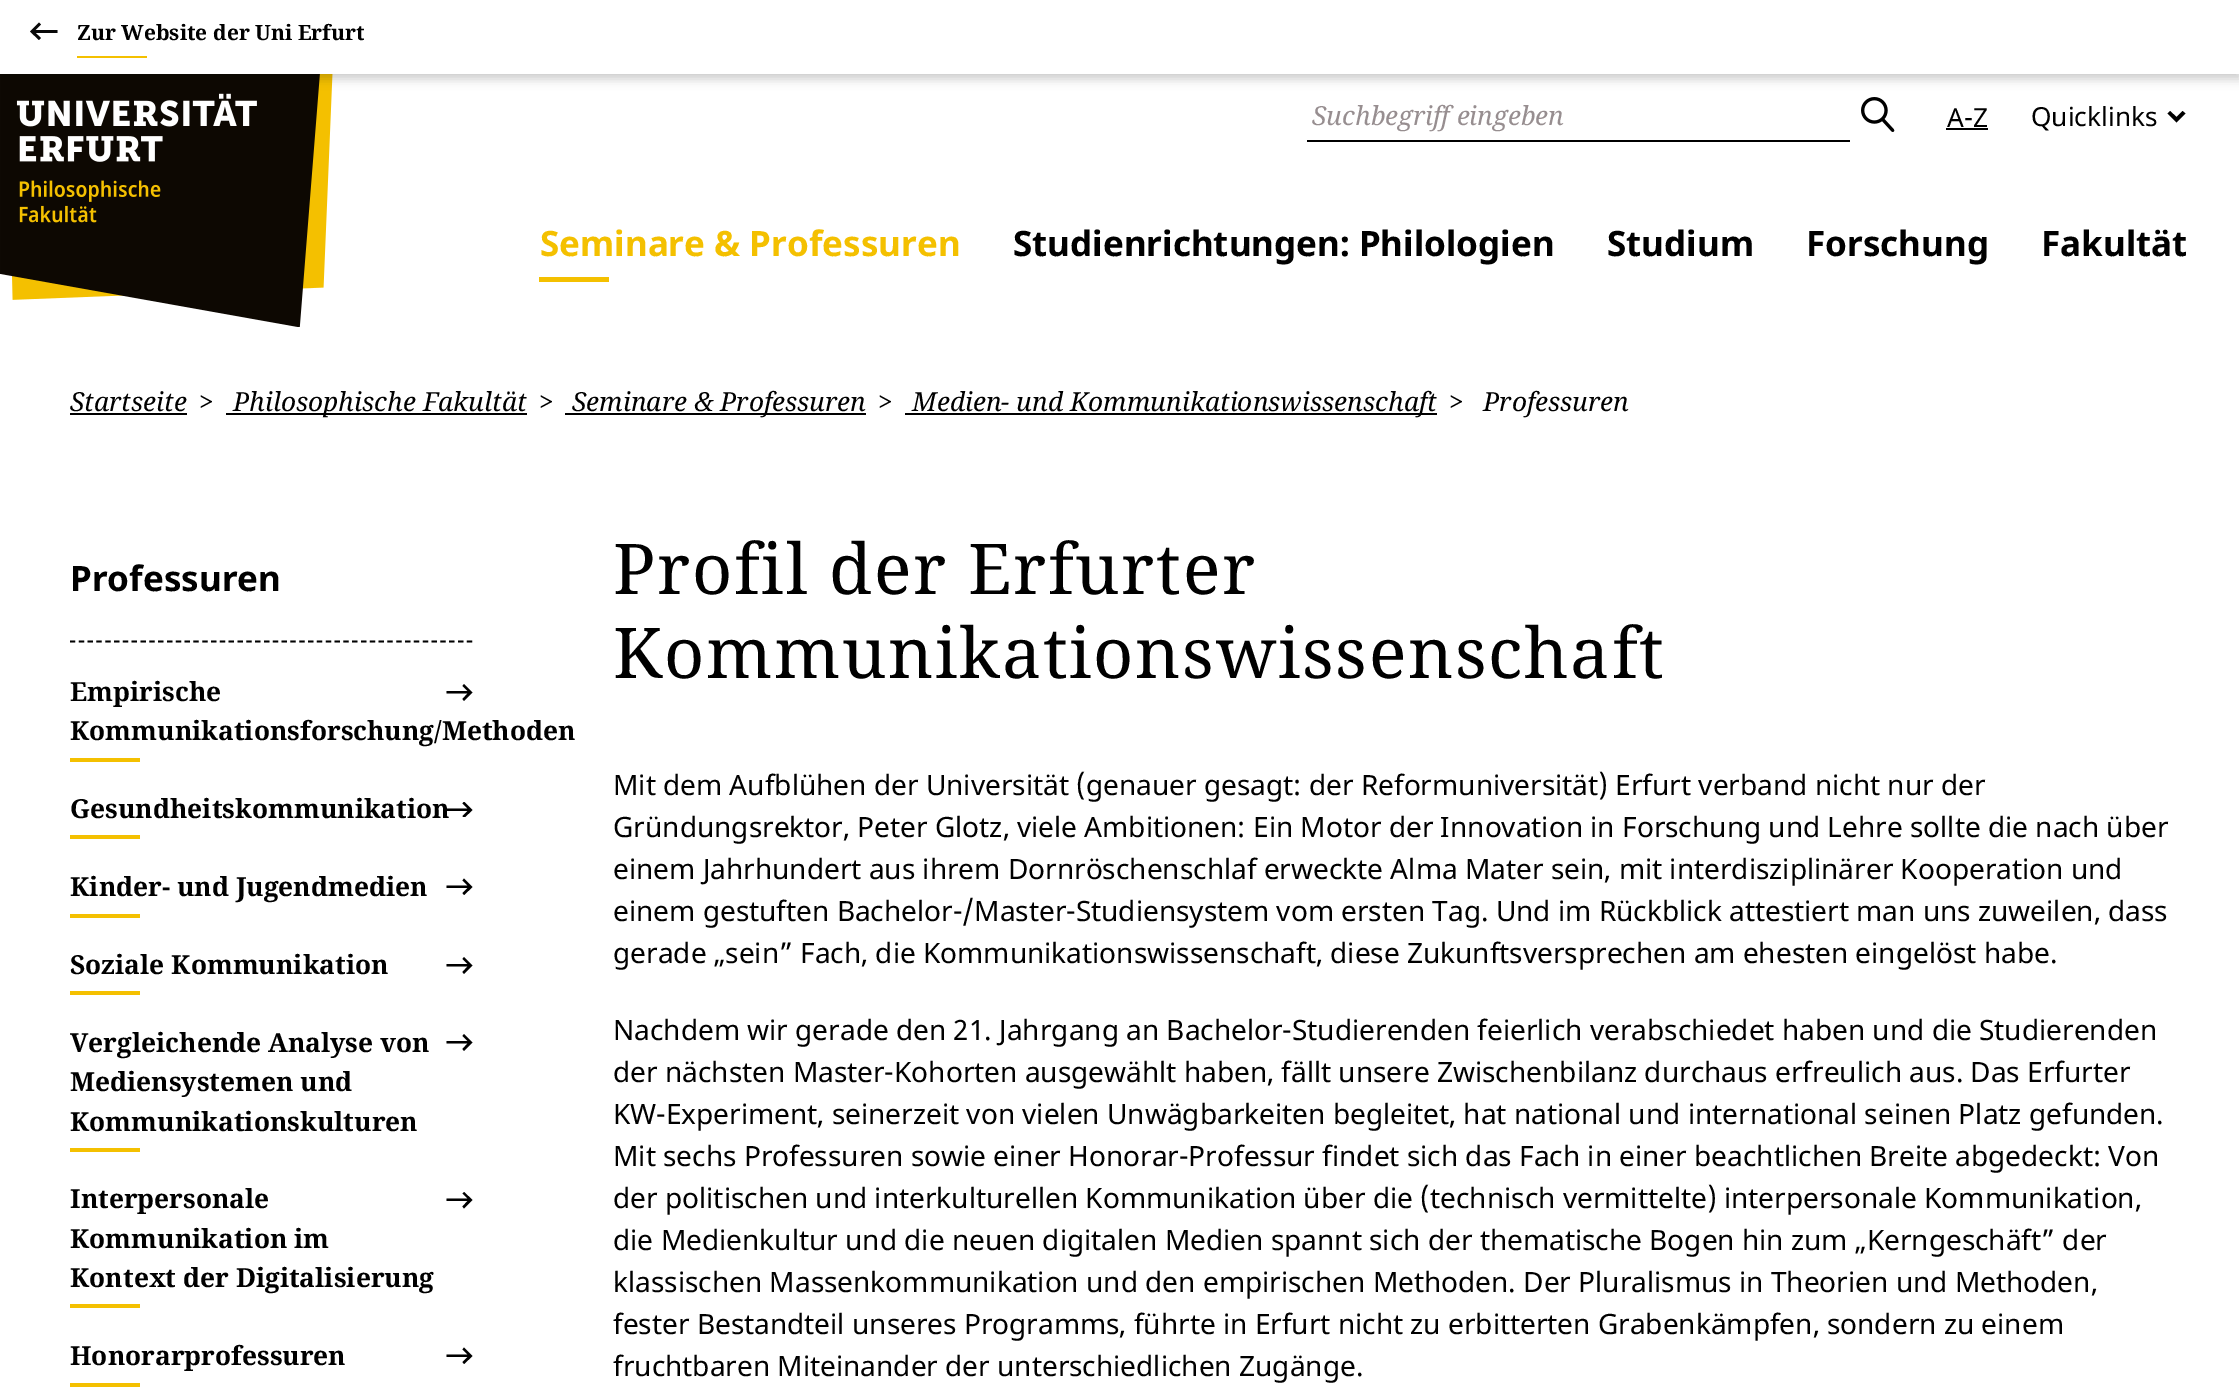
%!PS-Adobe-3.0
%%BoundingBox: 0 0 2239 1397
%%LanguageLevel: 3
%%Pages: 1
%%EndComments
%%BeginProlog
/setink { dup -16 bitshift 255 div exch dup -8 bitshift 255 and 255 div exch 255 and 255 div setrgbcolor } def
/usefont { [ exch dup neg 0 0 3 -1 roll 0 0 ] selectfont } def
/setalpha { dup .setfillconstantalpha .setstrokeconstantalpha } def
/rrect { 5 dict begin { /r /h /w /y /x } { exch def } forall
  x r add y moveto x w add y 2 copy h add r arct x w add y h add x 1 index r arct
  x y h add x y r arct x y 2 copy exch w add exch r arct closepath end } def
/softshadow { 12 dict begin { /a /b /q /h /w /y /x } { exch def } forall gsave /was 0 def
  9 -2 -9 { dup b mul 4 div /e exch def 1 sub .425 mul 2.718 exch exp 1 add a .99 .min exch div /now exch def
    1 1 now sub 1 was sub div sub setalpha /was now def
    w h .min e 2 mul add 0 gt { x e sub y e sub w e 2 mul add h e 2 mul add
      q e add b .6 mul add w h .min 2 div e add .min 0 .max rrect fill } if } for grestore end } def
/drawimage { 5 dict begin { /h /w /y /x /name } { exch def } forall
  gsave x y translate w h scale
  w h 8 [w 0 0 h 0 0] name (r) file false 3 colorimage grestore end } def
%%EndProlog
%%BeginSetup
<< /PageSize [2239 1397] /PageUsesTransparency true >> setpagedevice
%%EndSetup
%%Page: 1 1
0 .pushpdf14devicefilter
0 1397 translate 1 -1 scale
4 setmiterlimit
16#FFFFFF setink
0 0 2239 1397 rectfill
(img1.raw) 0 74 333 253 drawimage
16#000000 setink
0 5 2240 74 0 5 0.2 softshadow
16#FFFFFF setink
0 0 2239 74 rectfill
16#080808 setink
39 40 moveto 41 38 lineto 35.5 33 lineto 57.5 33 lineto 57.5 30 lineto 35.5 30 lineto 41 24.5 lineto 39 22.5 lineto 30 31.5 lineto closepath fill
/NotoSerif-Bold 21 usefont
16#000000 setink
77 40 moveto (Zur Website der Uni Erfurt) show
16#F4C000 setink
77 56 70 2 rectfill
16#000000 setink
1307 140 543 2 rectfill
/NotoSerif-Italic 26.25 usefont
16#978E90 setink
1312 125 moveto (Suchbegriff eingeben) show
(img2.raw) 1861 97 34 35 drawimage
/NotoSans-Regular 26.25 usefont
16#000000 setink
1947 127 moveto (A-Z) show
1946 128 42 2 rectfill
2031 126 moveto (Quicklinks) show
2176.5 122.5 moveto 2167.5 113.5 lineto 2170 111 lineto 2176.5 117 lineto 2182.5 111 lineto 2185.5 113.5 lineto closepath fill
/NotoSans-Bold 35 usefont
16#F4C000 setink
540 256 moveto (Seminare & Professuren) show
539 277 70 5 rectfill
16#000000 setink
[
    [(Studienrichtungen: Philologien) 1013 256]
    [(Studium) 1607 256]
    [(Forschung) 1806 256]
    [(Fakultät) 2041 256]
] { aload pop moveto show } forall
/NotoSerif-Italic 26.25 usefont
70 411 moveto (Startseite) show
70 413 117 2 rectfill
199 411 moveto (>) show
226 413 301 2 rectfill
233 411 moveto (Philosophische Fakultät) show
539 411 moveto (>) show
565 413 301 2 rectfill
572 411 moveto (Seminare & Professuren) show
878 411 moveto (>) show
905 413 532 2 rectfill
[
    [(Medien- und Kommunikationswissenschaft) 912 411]
    [(>) 1449 411]
    [(Professuren) 1483 411]
] { aload pop moveto show } forall
/NotoSans-Bold 35 usefont
70 591 moveto (Professuren) show
1.8 setlinewidth
[5.25 3.57] 0 setdash
70 641.5 moveto 472.5 641.5 lineto stroke
/NotoSerif-Bold 26.25 usefont
70 701 moveto (Empirische) show
70 740 moveto (Kommunikationsforschung/Methoden) show
16#F4C000 setink
70 758 70 4 rectfill
16#000000 setink
464 684 moveto 462.5 686 lineto 467.5 691 lineto 446.5 691 lineto 446.5 693.5 lineto 467.5 693.5 lineto 462.5 699 lineto 464 701 lineto 472.5 692.5 lineto closepath fill
70 818 moveto (Gesundheitskommunikation) show
16#F4C000 setink
70 835 70 4 rectfill
gsave
446 802 27 15 rectclip
16#000000 setink
464 801.5 moveto 462.5 803.5 lineto 467.5 808.5 lineto 446.5 808.5 lineto 446.5 811 lineto 467.5 811 lineto 462.5 816 lineto 464 818 lineto 472.5 810 lineto closepath fill
grestore
16#000000 setink
70 896 moveto (Kinder- und Jugendmedien) show
16#F4C000 setink
70 914 70 4 rectfill
16#000000 setink
464 878.5 moveto 462.5 880.5 lineto 467.5 885.5 lineto 446.5 885.5 lineto 446.5 888 lineto 467.5 888 lineto 462.5 893 lineto 464 895 lineto 472.5 887 lineto closepath fill
70 974 moveto (Soziale Kommunikation) show
16#F4C000 setink
70 991 70 4 rectfill
16#000000 setink
464 957 moveto 462.5 959 lineto 467.5 964 lineto 446.5 964 lineto 446.5 966.5 lineto 467.5 966.5 lineto 462.5 972 lineto 464 974 lineto 472.5 965.5 lineto closepath fill
[
    [(Vergleichende Analyse von) 70 1052]
    [(Mediensystemen und) 70 1091]
    [(Kommunikationskulturen) 70 1131]
] { aload pop moveto show } forall
16#F4C000 setink
70 1148 70 4 rectfill
16#000000 setink
464 1034 moveto 462.5 1036 lineto 467.5 1041 lineto 446.5 1041 lineto 446.5 1043.5 lineto 467.5 1043.5 lineto 462.5 1049 lineto 464 1051 lineto 472.5 1042.5 lineto closepath fill
[
    [(Interpersonale) 70 1208]
    [(Kommunikation im) 70 1248]
    [(Kontext der Digitalisierung) 70 1287]
] { aload pop moveto show } forall
16#F4C000 setink
70 1304 70 4 rectfill
16#000000 setink
464 1192 moveto 462.5 1193.5 lineto 467.5 1198.5 lineto 446.5 1198.5 lineto 446.5 1201 lineto 467.5 1201 lineto 462.5 1206.5 lineto 464 1208.5 lineto 472.5 1200 lineto closepath fill
70 1365 moveto (Honorarprofessuren) show
16#F4C000 setink
70 1383 70 4 rectfill
16#000000 setink
464 1347.5 moveto 462.5 1349.5 lineto 467.5 1354.5 lineto 446.5 1354.5 lineto 446.5 1357 lineto 467.5 1357 lineto 462.5 1362 lineto 464 1364 lineto 472.5 1356 lineto closepath fill
/NotoSerif-Regular 70 usefont
613 594 moveto 1.75 0 (Profil der Erfurter) ashow
613 678 moveto 1.75 0 (Kommunikationswissenschaft) ashow
/NotoSans-Regular 28 usefont
[
    [(Mit dem Aufblühen der Universität \(genauer gesagt: der Reformuniversität\) Erfurt verband nicht nur der) 613 795]
    [(Gründungsrektor, Peter Glotz, viele Ambitionen: Ein Motor der Innovation in Forschung und Lehre sollte die nach über) 613 837]
    [(einem Jahrhundert aus ihrem Dornröschenschlaf erweckte Alma Mater sein, mit interdisziplinärer Kooperation und) 613 879]
    [(einem gestuften Bachelor-/Master-Studiensystem vom ersten Tag. Und im Rückblick attestiert man uns zuweilen, dass) 613 921]
    [(gerade „sein” Fach, die Kommunikationswissenschaft, diese Zukunftsversprechen am ehesten eingelöst habe.) 613 963]
    [(Nachdem wir gerade den 21. Jahrgang an Bachelor-Studierenden feierlich verabschiedet haben und die Studierenden) 613 1040]
    [(der nächsten Master-Kohorten ausgewählt haben, fällt unsere Zwischenbilanz durchaus erfreulich aus. Das Erfurter) 613 1082]
    [(KW-Experiment, seinerzeit von vielen Unwägbarkeiten begleitet, hat national und international seinen Platz gefunden.) 613 1124]
    [(Mit sechs Professuren sowie einer Honorar-Professur findet sich das Fach in einer beachtlichen Breite abgedeckt: Von) 613 1166]
    [(der politischen und interkulturellen Kommunikation über die \(technisch vermittelte\) interpersonale Kommunikation,) 613 1208]
    [(die Medienkultur und die neuen digitalen Medien spannt sich der thematische Bogen hin zum „Kerngeschäft” der) 613 1250]
    [(klassischen Massenkommunikation und den empirischen Methoden. Der Pluralismus in Theorien und Methoden,) 613 1292]
    [(fester Bestandteil unseres Programms, führte in Erfurt nicht zu erbitterten Grabenkämpfen, sondern zu einem) 613 1334]
    [(fruchtbaren Miteinander der unterschiedlichen Zugänge.) 613 1376]
] { aload pop moveto show } forall
.poppdf14devicefilter showpage
%%EOF
